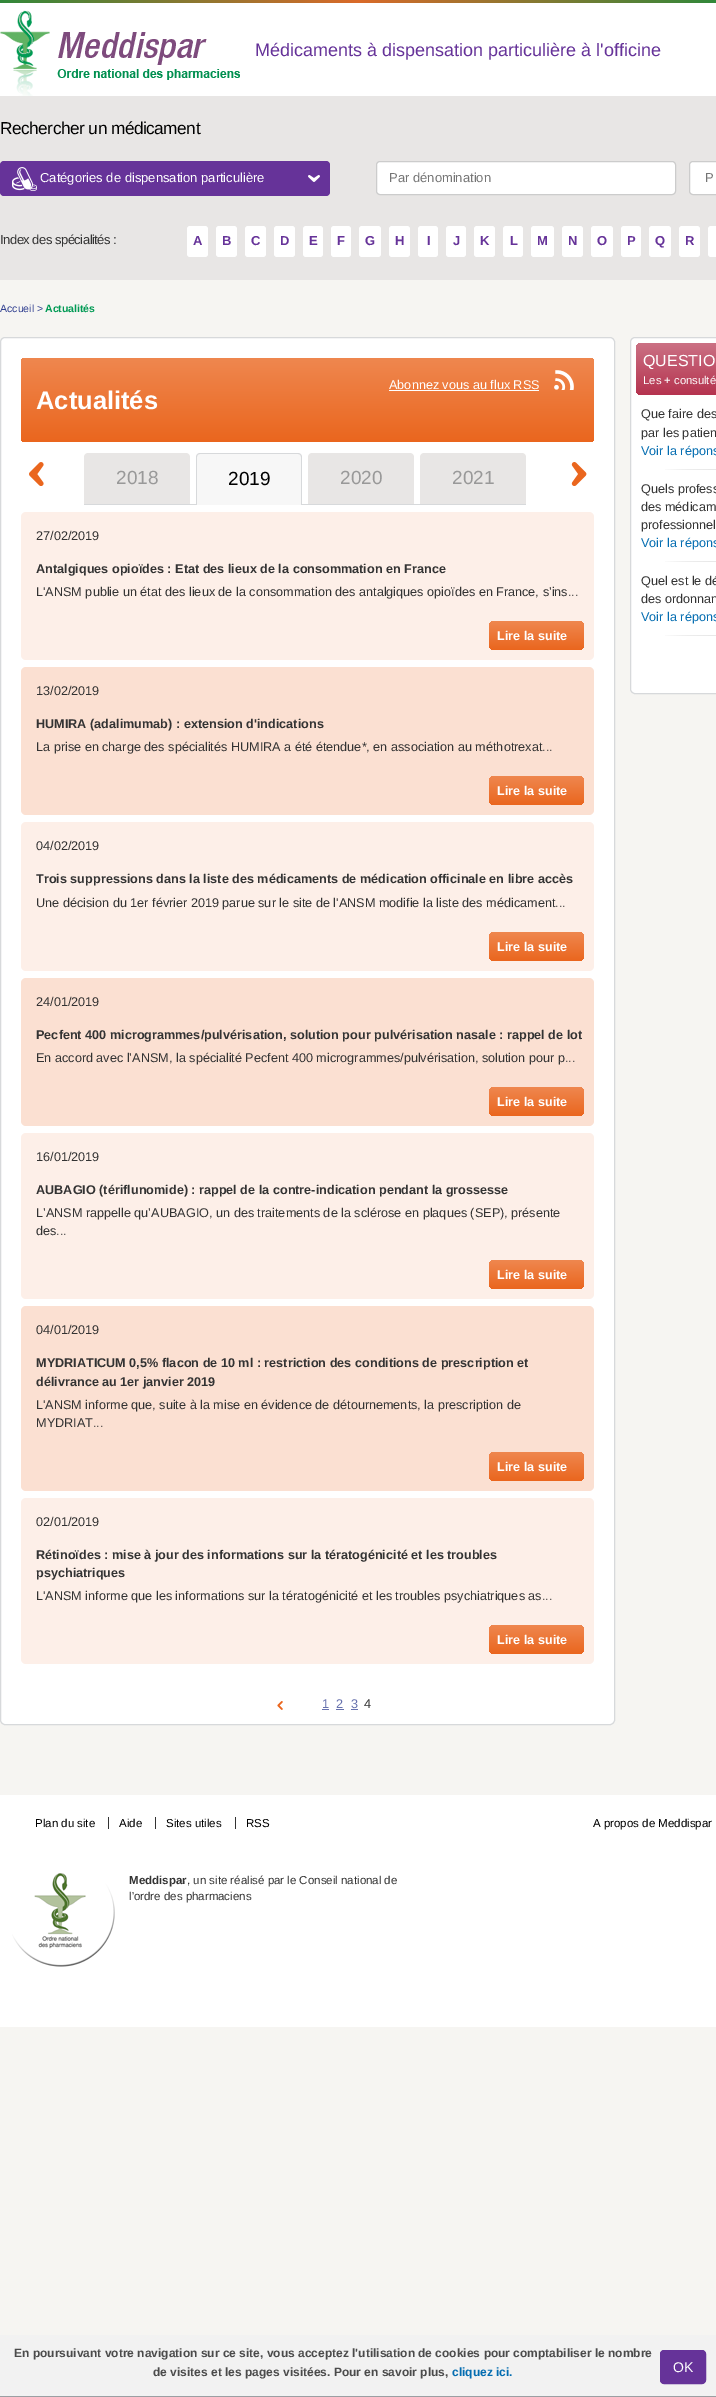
%!PS-Adobe-3.0
%%BoundingBox: 0 0 716 2397
%%LanguageLevel: 3
%%Pages: 1
%%EndComments
%%BeginProlog
/setink { dup -16 bitshift 255 div exch dup -8 bitshift 255 and 255 div exch 255 and 255 div setrgbcolor } def
/usefont { [ exch dup neg 0 0 3 -1 roll 0 0 ] selectfont } def
/rrect { 5 dict begin { /r /h /w /y /x } { exch def } forall
  x r add y moveto x w add y 2 copy h add r arct x w add y h add x 1 index r arct
  x y h add x y r arct x y 2 copy exch w add exch r arct closepath end } def
/drawimage { 5 dict begin { /h /w /y /x /name } { exch def } forall
  gsave x y translate w h scale
  w h 8 [w 0 0 h 0 0] name (r) file false 3 colorimage grestore end } def
%%EndProlog
%%BeginSetup
<< /PageSize [716 2397] >> setpagedevice
%%EndSetup
%%Page: 1 1
0 2397 translate 1 -1 scale
4 setmiterlimit
16#F6F5F2 setink
0 0 716 2397 rectfill
gsave 0 0 moveto 716 0 lineto 716 3 lineto 0 3 lineto closepath clip newpath
<< /ShadingType 2 /ColorSpace /DeviceRGB /Coords [0 1.5 716 1.5] /Extend [true true] /Function << /FunctionType 3 /Domain [0 1] /Functions [<< /FunctionType 2 /Domain [0 1] /C0 [0.192 0.533 0.227] /C1 [0.855 0.416 0.161] /N 1 >> << /FunctionType 2 /Domain [0 1] /C0 [0.855 0.416 0.161] /C1 [0.192 0.533 0.227] /N 1 >>] /Bounds [0.5] /Encode [0 1 0 1] >> >> shfill grestore
16#FFFFFF setink
0 3 716 93 rectfill
(img1.raw) 0 10 240 86 drawimage
/LiberationSans-Regular 18 usefont
16#663399 setink
255 56 moveto (Médicaments à dispensation particulière à l'officine) show
16#E8E6E5 setink
0 96 716 184 rectfill
/LiberationSans-Regular 17.25 usefont
16#000000 setink
0 134 moveto -0.5 0 (Rechercher un médicament) ashow
16#663399 setink
0 161 330 35 4 rrect fill
(img2.raw) 12 167 25 24 drawimage
/LiberationSans-Regular 13 usefont
16#FFFFFF setink
40 182 moveto (Catégories de dispensation particulière) show
(img3.raw) 308 175 12 7 drawimage
376.5 161.5 299 33 3.5 rrect gsave fill grestore
16#CCCCCC setink
stroke
16#757575 setink
389 182 moveto (Par dénomination) show
16#FFFFFF setink
689.5 161.5 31 33 3.5 rrect gsave fill grestore
16#CCCCCC setink
stroke
16#757575 setink
705 182 moveto (P) show
16#333333 setink
0 244 moveto -0.5 0 (Index des spécialités :) ashow
16#FFFFFF setink
187 226 21 31 3 rrect fill
/LiberationSans-Bold 13 usefont
16#663399 setink
193 245 moveto -0.5 0 (A) ashow
16#FFFFFF setink
216 226 21 31 3 rrect fill
16#663399 setink
222 245 moveto -0.5 0 (B) ashow
16#FFFFFF setink
245 226 21 31 3 rrect fill
16#663399 setink
251 245 moveto -0.5 0 (C) ashow
16#FFFFFF setink
274 226 21 31 3 rrect fill
16#663399 setink
280 245 moveto -0.5 0 (D) ashow
16#FFFFFF setink
303 226 20 31 3 rrect fill
16#663399 setink
309 245 moveto -0.5 0 (E) ashow
16#FFFFFF setink
331 226 20 31 3 rrect fill
16#663399 setink
337 245 moveto -0.5 0 (F) ashow
16#FFFFFF setink
359 226 22 31 3 rrect fill
16#663399 setink
365 245 moveto -0.5 0 (G) ashow
16#FFFFFF setink
389 226 21 31 3 rrect fill
16#663399 setink
395 245 moveto -0.5 0 (H) ashow
16#FFFFFF setink
418 226 20 31 3 rrect fill
16#663399 setink
427 245 moveto -0.5 0 (I) ashow
16#FFFFFF setink
446 226 20 31 3 rrect fill
16#663399 setink
453 245 moveto -0.5 0 (J) ashow
16#FFFFFF setink
474 226 21 31 3 rrect fill
16#663399 setink
480 245 moveto -0.5 0 (K) ashow
16#FFFFFF setink
503 226 20 31 3 rrect fill
16#663399 setink
510 245 moveto -0.5 0 (L) ashow
16#FFFFFF setink
531 226 23 31 3 rrect fill
16#663399 setink
537 245 moveto -0.5 0 (M) ashow
16#FFFFFF setink
562 226 21 31 3 rrect fill
16#663399 setink
568 245 moveto -0.5 0 (N) ashow
16#FFFFFF setink
591 226 22 31 3 rrect fill
16#663399 setink
597 245 moveto -0.5 0 (O) ashow
16#FFFFFF setink
621 226 20 31 3 rrect fill
16#663399 setink
627 245 moveto -0.5 0 (P) ashow
16#FFFFFF setink
649 226 22 31 3 rrect fill
16#663399 setink
655 245 moveto -0.5 0 (Q) ashow
16#FFFFFF setink
679 226 21 31 3 rrect fill
16#663399 setink
685 245 moveto -0.5 0 (R) ashow
16#FFFFFF setink
708 226 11 31 3 rrect fill
/LiberationSans-Regular 10.5 usefont
16#303F90 setink
0 312 moveto (Accueil >) show
/LiberationSans-Bold 10.5 usefont
16#009A54 setink
45 312 moveto (Actualités) show
16#FFFFFF setink
0.5 337.5 614 1387 4.5 rrect gsave fill grestore
16#D7D9DB setink
stroke
gsave 21 358 573 84 4 rrect clip newpath
<< /ShadingType 2 /ColorSpace /DeviceRGB /Coords [308 358 308 442] /Extend [true true] /Function << /FunctionType 2 /Domain [0 1] /C0 [0.937 0.529 0.31] /C1 [0.918 0.4 0.118] /N 1 >> >> shfill grestore
(img4.raw) 554 370 20 20 drawimage
/LiberationSans-Regular 12.65 usefont
16#FFFFFF setink
389 389 moveto (Abonnez vous au flux RSS) show
389 390 150 1 rectfill
/LiberationSans-Bold 25.5 usefont
36 409 moveto (Actualités) show
(img5.raw) 29 462 15 24 drawimage
16#D7D9DB setink
190 504 230 1 rectfill
16#E8E6E5 setink
88 453 moveto 186 453 lineto 188 453 190 455 190 457 curveto 190 505 lineto 84 505 lineto 84 457 lineto 84 455 86 453 88 453 curveto closepath fill
16#D7D9DB setink
84 504 106 1 rectfill
/LiberationSans-Regular 19 usefont
16#999999 setink
116 484 moveto (2018) show
16#F7F7F7 setink
200 453 moveto 298 453 lineto 300 453 302 455 302 457 curveto 302 505 lineto 196 505 lineto 196 457 lineto 196 455 198 453 200 453 curveto closepath fill
16#D7D9DB setink
200 453 moveto 298 453 lineto 300 453 302 455 302 457 curveto 302 505 lineto 196 505 lineto 196 457 lineto 196 455 198 453 200 453 curveto closepath 200 454 moveto 298 454 lineto 300 454 301 455 301 457 curveto 301 505 lineto 197 505 lineto 197 457 lineto 197 455 198 454 200 454 curveto closepath eofill
16#000000 setink
228 485 moveto (2019) show
16#E8E6E5 setink
312 453 moveto 410 453 lineto 412 453 414 455 414 457 curveto 414 505 lineto 308 505 lineto 308 457 lineto 308 455 310 453 312 453 curveto closepath fill
16#D7D9DB setink
308 504 106 1 rectfill
16#999999 setink
340 484 moveto (2020) show
16#E8E6E5 setink
424 453 moveto 522 453 lineto 524 453 526 455 526 457 curveto 526 505 lineto 420 505 lineto 420 457 lineto 420 455 422 453 424 453 curveto closepath fill
16#D7D9DB setink
420 504 106 1 rectfill
16#999999 setink
452 484 moveto (2021) show
(img6.raw) 571 462 16 24 drawimage
16#FDEFE8 setink
21 512 573 148 5 rrect fill
/LiberationSans-Regular 12.65 usefont
16#333333 setink
36 540 moveto (27/02/2019) show
/LiberationSans-Bold 12.65 usefont
36 573 moveto (Antalgiques opioïdes : Etat des lieux de la consommation en France) show
/LiberationSans-Regular 12.65 usefont
36 596 moveto (L'ANSM publie un état des lieux de la consommation des antalgiques opioïdes en France, s’ins...) show
gsave 489 621 95 29 5 rrect clip newpath
<< /ShadingType 2 /ColorSpace /DeviceRGB /Coords [537 621 537 650] /Extend [true true] /Function << /FunctionType 2 /Domain [0 1] /C0 [0.937 0.529 0.31] /C1 [0.918 0.4 0.118] /N 1 >> >> shfill grestore
/LiberationSans-Bold 12.65 usefont
16#FFFFFF setink
497 640 moveto (Lire la suite) show
16#FBE0D2 setink
21 667 573 148 5 rrect fill
/LiberationSans-Regular 12.65 usefont
16#333333 setink
36 695 moveto (13/02/2019) show
/LiberationSans-Bold 12.65 usefont
36 728 moveto (HUMIRA \(adalimumab\) : extension d'indications) show
/LiberationSans-Regular 12.65 usefont
36 751 moveto (La prise en charge des spécialités HUMIRA a été étendue*, en association au méthotrexat...) show
gsave 489 776 95 29 5 rrect clip newpath
<< /ShadingType 2 /ColorSpace /DeviceRGB /Coords [537 776 537 805] /Extend [true true] /Function << /FunctionType 2 /Domain [0 1] /C0 [0.937 0.529 0.31] /C1 [0.918 0.4 0.118] /N 1 >> >> shfill grestore
/LiberationSans-Bold 12.65 usefont
16#FFFFFF setink
497 795 moveto (Lire la suite) show
16#FDEFE8 setink
21 822 573 149 5 rrect fill
/LiberationSans-Regular 12.65 usefont
16#333333 setink
36 850 moveto (04/02/2019) show
/LiberationSans-Bold 12.65 usefont
36 883 moveto (Trois suppressions dans la liste des médicaments de médication officinale en libre accès) show
/LiberationSans-Regular 12.65 usefont
36 907 moveto (Une décision du 1er février 2019 parue sur le site de l'ANSM modifie la liste des médicament...) show
gsave 489 932 95 29 5 rrect clip newpath
<< /ShadingType 2 /ColorSpace /DeviceRGB /Coords [537 932 537 961] /Extend [true true] /Function << /FunctionType 2 /Domain [0 1] /C0 [0.937 0.529 0.31] /C1 [0.918 0.4 0.118] /N 1 >> >> shfill grestore
/LiberationSans-Bold 12.65 usefont
16#FFFFFF setink
497 951 moveto (Lire la suite) show
16#FBE0D2 setink
21 978 573 148 5 rrect fill
/LiberationSans-Regular 12.65 usefont
16#333333 setink
36 1006 moveto (24/01/2019) show
/LiberationSans-Bold 12.65 usefont
36 1039 moveto (Pecfent 400 microgrammes/pulvérisation, solution pour pulvérisation nasale : rappel de lot) show
/LiberationSans-Regular 12.65 usefont
36 1062 moveto (En accord avec l’ANSM, la spécialité Pecfent 400 microgrammes/pulvérisation, solution pour p...) show
gsave 489 1087 95 29 5 rrect clip newpath
<< /ShadingType 2 /ColorSpace /DeviceRGB /Coords [537 1087 537 1116] /Extend [true true] /Function << /FunctionType 2 /Domain [0 1] /C0 [0.937 0.529 0.31] /C1 [0.918 0.4 0.118] /N 1 >> >> shfill grestore
/LiberationSans-Bold 12.65 usefont
16#FFFFFF setink
497 1106 moveto (Lire la suite) show
16#FDEFE8 setink
21 1133 573 166 5 rrect fill
/LiberationSans-Regular 12.65 usefont
16#333333 setink
36 1161 moveto (16/01/2019) show
/LiberationSans-Bold 12.65 usefont
36 1194 moveto (AUBAGIO \(tériflunomide\) : rappel de la contre-indication pendant la grossesse) show
/LiberationSans-Regular 12.65 usefont
36 1217 moveto (L’ANSM rappelle qu’AUBAGIO, un des traitements de la sclérose en plaques \(SEP\), présente) show
36 1235 moveto (des...) show
gsave 489 1260 95 29 5 rrect clip newpath
<< /ShadingType 2 /ColorSpace /DeviceRGB /Coords [537 1260 537 1289] /Extend [true true] /Function << /FunctionType 2 /Domain [0 1] /C0 [0.937 0.529 0.31] /C1 [0.918 0.4 0.118] /N 1 >> >> shfill grestore
/LiberationSans-Bold 12.65 usefont
16#FFFFFF setink
497 1279 moveto (Lire la suite) show
16#FBE0D2 setink
21 1306 573 185 5 rrect fill
/LiberationSans-Regular 12.65 usefont
16#333333 setink
36 1334 moveto (04/01/2019) show
/LiberationSans-Bold 12.65 usefont
36 1367 moveto (MYDRIATICUM 0,5% flacon de 10 ml : restriction des conditions de prescription et) show
36 1386 moveto (délivrance au 1er janvier 2019) show
/LiberationSans-Regular 12.65 usefont
36 1409 moveto (L'ANSM informe que, suite à la mise en évidence de détournements, la prescription de) show
36 1427 moveto (MYDRIAT...) show
gsave 489 1452 95 29 5 rrect clip newpath
<< /ShadingType 2 /ColorSpace /DeviceRGB /Coords [537 1452 537 1481] /Extend [true true] /Function << /FunctionType 2 /Domain [0 1] /C0 [0.937 0.529 0.31] /C1 [0.918 0.4 0.118] /N 1 >> >> shfill grestore
/LiberationSans-Bold 12.65 usefont
16#FFFFFF setink
497 1471 moveto (Lire la suite) show
16#FDEFE8 setink
21 1498 573 166 5 rrect fill
/LiberationSans-Regular 12.65 usefont
16#333333 setink
36 1526 moveto (02/01/2019) show
/LiberationSans-Bold 12.65 usefont
36 1559 moveto (Rétinoïdes : mise à jour des informations sur la tératogénicité et les troubles) show
36 1577 moveto (psychiatriques) show
/LiberationSans-Regular 12.65 usefont
36 1600 moveto (L'ANSM informe que les informations sur la tératogénicité et les troubles psychiatriques as...) show
gsave 489 1625 95 29 5 rrect clip newpath
<< /ShadingType 2 /ColorSpace /DeviceRGB /Coords [537 1625 537 1654] /Extend [true true] /Function << /FunctionType 2 /Domain [0 1] /C0 [0.937 0.529 0.31] /C1 [0.918 0.4 0.118] /N 1 >> >> shfill grestore
/LiberationSans-Bold 12.65 usefont
16#FFFFFF setink
497 1644 moveto (Lire la suite) show
(img7.raw) 277 1701 6 9 drawimage
/LiberationSans-Regular 12.65 usefont
16#6772AE setink
322 1708 moveto (1) show
322 1709 7 1 rectfill
336 1708 moveto (2) show
336 1709 8 1 rectfill
351 1708 moveto (3) show
351 1709 7 1 rectfill
16#333333 setink
364 1708 moveto (4) show
16#FFFFFF setink
630.5 337.5 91 356 4.5 rrect gsave fill grestore
16#D7D9DB setink
stroke
gsave 636 343 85 52 5 rrect clip newpath
<< /ShadingType 2 /ColorSpace /DeviceRGB /Coords [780 343 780 395] /Extend [true true] /Function << /FunctionType 2 /Domain [0 1] /C0 [0.796 0.443 0.518] /C1 [0.71 0.2 0.31] /N 1 >> >> shfill grestore
/LiberationSans-Regular 16 usefont
16#FFFFFF setink
643 366 moveto (QUESTIO) show
/LiberationSans-Regular 11.25 usefont
643 384 moveto (Les + consulté) show
(img8.raw) 665 469 51 1 drawimage
/LiberationSans-Regular 12.65 usefont
16#333333 setink
641 418 moveto (Que faire des) show
641 437 moveto (par les patien) show
16#046DB1 setink
641 455 moveto (Voir la répons) show
(img8.raw) 665 561 51 1 drawimage
16#333333 setink
[
    [(Quels profess) 641 493]
    [(des médicam) 641 511]
    [(professionnel) 641 529]
] { aload pop moveto show } forall
16#046DB1 setink
641 547 moveto (Voir la répons) show
(img8.raw) 665 635 51 1 drawimage
16#333333 setink
641 585 moveto (Quel est le dé) show
641 603 moveto (des ordonnan) show
16#046DB1 setink
641 621 moveto (Voir la répons) show
16#FFFFFF setink
0 1795 716 232 rectfill
/LiberationSans-Regular 11.5 usefont
16#000000 setink
35 1827 moveto (Plan du site) show
119 1827 moveto (Aide) show
16#333333 setink
108 1817 1 12 rectfill
16#000000 setink
166 1827 moveto (Sites utiles) show
16#333333 setink
155 1817 1 12 rectfill
16#000000 setink
246 1827 moveto (RSS) show
16#333333 setink
235 1817 1 12 rectfill
16#000000 setink
593 1827 moveto (A propos de Meddispar) show
(img9.raw) 12 1873 103 94 drawimage
/LiberationSans-Bold 11.5 usefont
16#333333 setink
129 1884 moveto (Meddispar) show
/LiberationSans-Regular 11.5 usefont
187 1884 moveto (, un site réalisé par le Conseil national de) show
129 1900 moveto (l'ordre des pharmaciens) show
16#F2F2F2 setink
0 2335 716 61 rectfill
16#9B9FA2 setink
0 2396 716 1 rectfill
/LiberationSans-Bold 12 usefont
16#4B4B4B setink
14 2357 moveto (En poursuivant votre navigation sur ce site, vous acceptez l'utilisation de cookies pour comptabiliser le nombre) show
153 2376 moveto (de visites et les pages visitées. Pour en savoir plus,) show
16#046DB1 setink
452 2376 moveto (cliquez ici.) show
16#663399 setink
660.5 2350.5 45 33 3.5 rrect gsave fill grestore
stroke
/LiberationSans-Regular 14 usefont
16#FFFFFF setink
673 2372 moveto (OK) show
showpage
%%EOF
